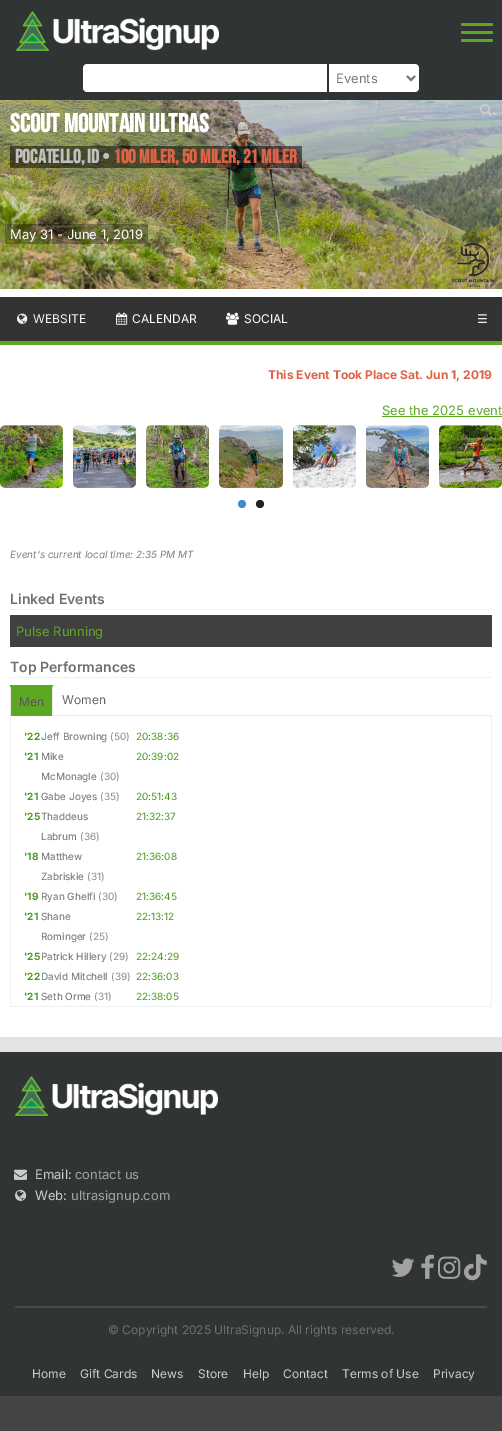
%!PS-Adobe-3.0
%%BoundingBox: 0 0 502 1431
%%LanguageLevel: 3
%%Pages: 1
%%EndComments
%%BeginProlog
/setink { dup -16 bitshift 255 div exch dup -8 bitshift 255 and 255 div exch 255 and 255 div setrgbcolor } def
/usefont { [ exch dup neg 0 0 3 -1 roll 0 0 ] selectfont } def
/setalpha { dup .setfillconstantalpha .setstrokeconstantalpha } def
/disc { newpath 0 360 arc closepath } def
/rrect { 5 dict begin { /r /h /w /y /x } { exch def } forall
  x r add y moveto x w add y 2 copy h add r arct x w add y h add x 1 index r arct
  x y h add x y r arct x y 2 copy exch w add exch r arct closepath end } def
/drawimage { 5 dict begin { /h /w /y /x /name } { exch def } forall
  gsave x y translate w h scale
  w h 8 [w 0 0 h 0 0] name (r) file false 3 colorimage grestore end } def
%%EndProlog
%%BeginSetup
<< /PageSize [502 1431] /PageUsesTransparency true >> setpagedevice
%%EndSetup
%%Page: 1 1
0 .pushpdf14devicefilter
0 1431 translate 1 -1 scale
4 setmiterlimit
16#444444 setink
0 0 502 1431 rectfill
16#FFFFFF setink
0 289 502 748 rectfill
16#303434 setink
0 0 502 100 rectfill
(img1.raw) 16 11 203 40 drawimage
16#5CA921 setink
461 31 32 3 1.5 rrect fill
461 23 32 3 1.5 rrect fill
461 39 32 3 1.5 rrect fill
16#FFFFFF setink
87 64 moveto 327 64 lineto 327 92 lineto 87 92 lineto 85 92 83 90 83 88 curveto 83 68 lineto 83 66 85 64 87 64 curveto closepath fill
329 64 moveto 415 64 lineto 417 64 419 66 419 68 curveto 419 88 lineto 419 90 417 92 415 92 curveto 329 92 lineto closepath fill
16#777777 setink
2 setlinewidth
407 76 moveto 411 80 lineto 415 76 lineto stroke
/Inter-Regular 13 usefont
336 83 moveto (Events) show
(img2.raw) 0 100 502 189 drawimage
/BebasNeue-Bold 26 usefont
16#FFFFFF setink
10 132 moveto (Scout Mountain Ultras) show
0.5 setalpha
16#000000 setink
10 146 292 22 rectfill
/BebasNeue-Bold 19.5 usefont
1 setalpha
16#C0C0C0 setink
15 163 moveto (Pocatello, ID •) show
16#DF6347 setink
113 163 moveto (100 Miler, 50 Miler, 21 Miler) show
(img3.raw) 480 103 12 13 drawimage
0.3 setalpha
16#000000 setink
5 224 143 20 rectfill
/Inter-Regular 13 usefont
1 setalpha
16#FFFFFF setink
10 239 moveto (May 31 - June 1, 2019) show
16#333333 setink
0 297 502 44 rectfill
16#5CA921 setink
0 341 502 4 rectfill
(img4.raw) 17 313 11 11 drawimage
/Inter-Regular 12 usefont
16#F2F2F2 setink
33 323 moveto (WEBSITE) show
(img5.raw) 116 312 12 13 drawimage
16#FFFFFF setink
132 323 moveto (CALENDAR) show
(img6.raw) 226 312 13 13 drawimage
244 323 moveto (SOCIAL) show
/DejaVuSans-Regular 12 usefont
16#F2F2F2 setink
477 323 moveto (☰) show
/Inter-Bold 12 usefont
16#DF6347 setink
268 379 moveto (This Event Took Place Sat. Jun 1, 2019) show
/Inter-Regular 13 usefont
16#5CA921 setink
382 415 moveto (See the 2025 event) show
382 416 120 1 rectfill
(img7.raw) 0 425 63 63 drawimage
(img8.raw) 73 425 63 63 drawimage
(img9.raw) 146 425 63 63 drawimage
(img10.raw) 219 425 64 63 drawimage
(img11.raw) 293 425 63 63 drawimage
(img12.raw) 366 425 63 63 drawimage
(img13.raw) 439 425 63 63 drawimage
16#428BCA setink
242 504 4 disc fill
16#222222 setink
260 504 4 disc fill
/Inter-Italic 10 usefont
16#808080 setink
10 558 moveto (Event's current local time: 2:35 PM MT) show
16#F0F0F0 setink
10 609 482 1 rectfill
/Inter-SemiBold 14 usefont
16#6F6F6F setink
10 604 moveto (Linked Events) show
16#404040 setink
10 615 482 32 rectfill
/Inter-Regular 13 usefont
16#5CA921 setink
16 636 moveto (Pulse Running) show
16#F0F0F0 setink
10 677 482 1 rectfill
/Inter-SemiBold 14 usefont
16#6F6F6F setink
10 672 moveto (Top Performances) show
[
    [53 715 439 1 16#EBEBEB]
    [10 685 43 2 16#5CA921]
    [11 687 41 29 16#5CA921]
    [52 687 1 29 16#EBEBEB]
    [10 687 1 29 16#EBEBEB]
] { aload pop setink rectfill } forall
/Inter-Regular 12 usefont
16#555555 setink
19 706 moveto (Men) show
16#626262 setink
62 704 moveto (Women) show
[
    [491 716 1 291 16#F0F0F0]
    [10 1006 482 1 16#F0F0F0]
    [10 716 1 291 16#F0F0F0]
] { aload pop setink rectfill } forall
/Inter-Bold 10 usefont
16#47991F setink
24 740 moveto ('22) show
/Inter-Regular 10 usefont
16#6F6F6F setink
41 740 moveto (Jeff Browning) show
16#888888 setink
110 740 moveto (\(50\)) show
16#47991F setink
136 740 moveto (20:38:36) show
/Inter-Bold 10 usefont
24 760 moveto ('21) show
/Inter-Regular 10 usefont
16#6F6F6F setink
41 760 moveto (Mike) show
41 780 moveto (McMonagle) show
16#888888 setink
100 780 moveto (\(30\)) show
16#47991F setink
136 760 moveto (20:39:02) show
/Inter-Bold 10 usefont
24 800 moveto ('21) show
/Inter-Regular 10 usefont
16#6F6F6F setink
41 800 moveto (Gabe Joyes) show
16#888888 setink
100 800 moveto (\(35\)) show
16#47991F setink
136 800 moveto (20:51:43) show
/Inter-Bold 10 usefont
24 820 moveto ('25) show
/Inter-Regular 10 usefont
16#6F6F6F setink
41 820 moveto (Thaddeus) show
41 840 moveto (Labrum) show
16#888888 setink
80 840 moveto (\(36\)) show
16#47991F setink
136 820 moveto (21:32:37) show
/Inter-Bold 10 usefont
24 860 moveto ('18) show
/Inter-Regular 10 usefont
16#6F6F6F setink
41 860 moveto (Matthew) show
41 880 moveto (Zabriskie) show
16#888888 setink
87 880 moveto (\(31\)) show
16#47991F setink
136 860 moveto (21:36:08) show
/Inter-Bold 10 usefont
24 900 moveto ('19) show
/Inter-Regular 10 usefont
16#6F6F6F setink
41 900 moveto (Ryan Ghelfi) show
16#888888 setink
98 900 moveto (\(30\)) show
16#47991F setink
136 900 moveto (21:36:45) show
/Inter-Bold 10 usefont
24 920 moveto ('21) show
/Inter-Regular 10 usefont
16#6F6F6F setink
41 920 moveto (Shane) show
41 940 moveto (Rominger) show
16#888888 setink
89 940 moveto (\(25\)) show
16#47991F setink
136 920 moveto (22:13:12) show
/Inter-Bold 10 usefont
24 960 moveto ('25) show
/Inter-Regular 10 usefont
16#6F6F6F setink
41 960 moveto (Patrick Hillery) show
16#888888 setink
109 960 moveto (\(29\)) show
16#47991F setink
136 960 moveto (22:24:29) show
/Inter-Bold 10 usefont
24 980 moveto ('22) show
/Inter-Regular 10 usefont
16#6F6F6F setink
41 980 moveto (David Mitchell) show
16#888888 setink
111 980 moveto (\(39\)) show
16#47991F setink
136 980 moveto (22:36:03) show
/Inter-Bold 10 usefont
24 1000 moveto ('21) show
/Inter-Regular 10 usefont
16#6F6F6F setink
41 1000 moveto (Seth Orme) show
16#888888 setink
94 1000 moveto (\(31\)) show
16#47991F setink
136 1000 moveto (22:38:05) show
16#E3E3E3 setink
0 1037 502 15 rectfill
16#303434 setink
0 1052 502 344 rectfill
(img14.raw) 15 1076 203 40 drawimage
(img15.raw) 14 1169 13 11 drawimage
/Inter-Regular 13 usefont
16#CCCCCC setink
35 1179 moveto (Email:) show
16#A2A2A2 setink
75 1179 moveto (contact us) show
(img16.raw) 15 1189 12 12 drawimage
16#CCCCCC setink
35 1200 moveto (Web:) show
16#A2A2A2 setink
71 1200 moveto (ultrasignup.com) show
(img17.raw) 392 1258 23 19 drawimage
(img18.raw) 421 1254 13 25 drawimage
(img19.raw) 438 1256 23 23 drawimage
(img20.raw) 464 1254 23 27 drawimage
16#4A4A4A setink
15 1306 472 2 rectfill
/Inter-Regular 12 usefont
16#6F6F6F setink
108 1334 moveto (© Copyright 2025 UltraSignup. All rights reserved.) show
16#CCCCCC setink
[
    [(Home) 32 1378]
    [(Gift Cards) 80 1378]
    [(News) 151 1378]
    [(Store) 198 1378]
    [(Help) 243 1378]
    [(Contact) 283 1378]
    [(Terms of Use) 342 1378]
    [(Privacy) 433 1378]
] { aload pop moveto show } forall
.poppdf14devicefilter showpage
%%EOF
